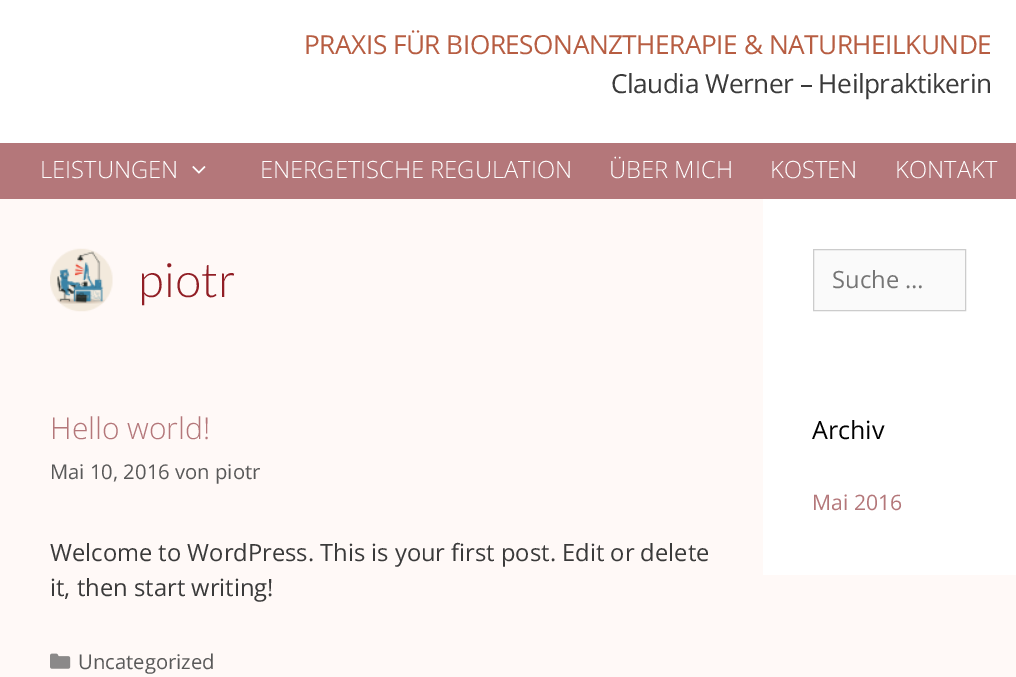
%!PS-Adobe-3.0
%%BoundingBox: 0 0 1016 677
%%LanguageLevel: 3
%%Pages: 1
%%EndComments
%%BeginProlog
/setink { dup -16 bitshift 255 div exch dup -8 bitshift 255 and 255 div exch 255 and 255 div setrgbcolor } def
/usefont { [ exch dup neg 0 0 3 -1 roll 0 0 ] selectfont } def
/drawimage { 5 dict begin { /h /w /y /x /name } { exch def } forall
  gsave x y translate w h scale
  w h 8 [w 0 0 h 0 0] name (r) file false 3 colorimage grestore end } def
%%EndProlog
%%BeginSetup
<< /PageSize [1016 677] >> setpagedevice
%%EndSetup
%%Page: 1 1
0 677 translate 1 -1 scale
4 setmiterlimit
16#B4777A setink
0 0 1016 677 rectfill
16#FFFFFF setink
0 0 1016 143 rectfill
/OpenSans-Regular 26.25 usefont
16#B75D42 setink
304 54 moveto -0.5 0 (PRAXIS FÜR BIORESONANZTHERAPIE & NATURHEILKUNDE) ashow
16#3A3A3A setink
611 93 moveto -0.5 0 (Claudia Werner – Heilpraktikerin) ashow
/OpenSans-Light 23.75 usefont
16#FFFFFF setink
40 178 moveto (LEISTUNGEN) show
(img1.raw) 192 166 14 8 drawimage
[
    [(ENERGETISCHE REGULATION) 260 178]
    [(ÜBER MICH) 609 178]
    [(KOSTEN) 770 178]
    [(KONTAKT) 895 178]
] { aload pop moveto show } forall
16#FFF9F7 setink
0 199 1016 478 rectfill
(img2.raw) 50 248 63 64 drawimage
/Lato-Light 47.5 usefont
16#911E25 setink
138 297 moveto (piotr) show
/OpenSans-Light 30 usefont
16#B4777A setink
50 439 moveto (Hello world!) show
/OpenSans-Regular 20.25 usefont
16#595959 setink
50 479 moveto (Mai 10, 2016 von piotr) show
/OpenSans-Regular 23.75 usefont
16#3A3A3A setink
50 561 moveto (Welcome to WordPress. This is your first post. Edit or delete) show
50 596 moveto (it, then start writing!) show
(img3.raw) 50 653 21 16 drawimage
/OpenSans-Regular 20.25 usefont
16#595959 setink
78 669 moveto (Uncategorized) show
16#FFFFFF setink
763 199 253 376 rectfill
16#FAFAFA setink
813.5 249.5 moveto 965.5 249.5 lineto 965.5 310.5 lineto 813.5 310.5 lineto closepath gsave fill grestore
16#CCCCCC setink
stroke
/OpenSans-Regular 23.75 usefont
16#757575 setink
832 288 moveto (Suche …) show
/OpenSans-Regular 25 usefont
16#000000 setink
812 439 moveto (Archiv) show
/OpenSans-Regular 21.25 usefont
16#B4777A setink
812 510 moveto (Mai 2016) show
showpage
%%EOF
